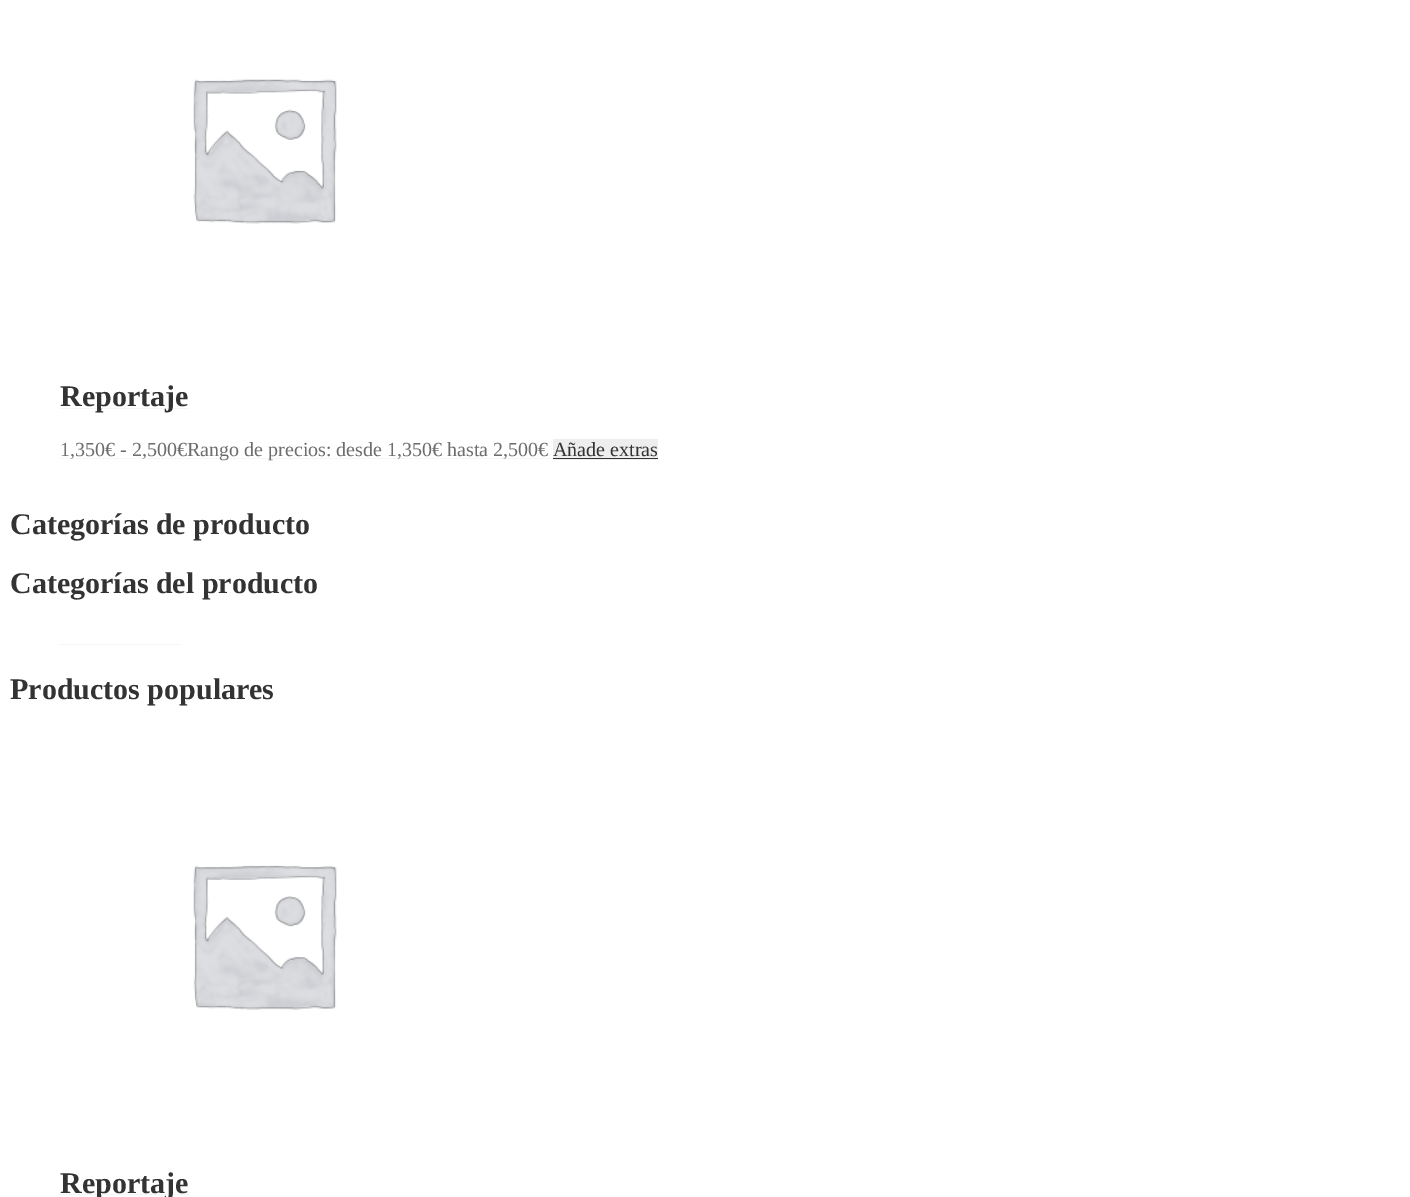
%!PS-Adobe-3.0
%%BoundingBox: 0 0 1410 1197
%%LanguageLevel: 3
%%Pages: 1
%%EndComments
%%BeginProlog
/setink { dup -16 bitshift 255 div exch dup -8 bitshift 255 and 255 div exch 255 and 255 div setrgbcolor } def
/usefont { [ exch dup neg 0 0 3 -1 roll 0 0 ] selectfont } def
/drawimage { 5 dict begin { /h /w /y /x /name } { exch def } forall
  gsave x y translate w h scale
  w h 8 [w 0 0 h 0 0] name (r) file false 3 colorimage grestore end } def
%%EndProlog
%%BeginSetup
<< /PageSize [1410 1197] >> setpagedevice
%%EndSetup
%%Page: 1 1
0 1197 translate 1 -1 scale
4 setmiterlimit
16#FFFFFF setink
0 0 1410 1197 rectfill
(img1.raw) 193 79 144 145 drawimage
16#F6F6F6 setink
60 408 129 1 rectfill
/LiberationSerif-Bold 30 usefont
16#333333 setink
60 406 moveto (Reportaje) show
16#F6F6F6 setink
60 458 126 1 rectfill
/LiberationSerif-Regular 20 usefont
16#6D6D6D setink
60 456 moveto (1,350€ - 2,500€) show
16#F6F6F6 setink
186 458 367 1 rectfill
16#6D6D6D setink
187 456 moveto (Rango de precios: desde 1,350€ hasta 2,500€) show
16#EEEEEE setink
553 439 105 21 rectfill
16#333333 setink
553 456 moveto (Añade extras) show
553 458 105 1 rectfill
/LiberationSerif-Bold 30 usefont
10 534 moveto (Categorías de producto) show
10 593 moveto (Categorías del producto) show
16#F6F6F6 setink
60 644 120 1 rectfill
16#333333 setink
10 699 moveto (Productos populares) show
(img2.raw) 193 865 144 145 drawimage
16#F6F6F6 setink
60 1194 129 1 rectfill
16#333333 setink
60 1193 moveto (Reportaje) show
showpage
%%EOF
